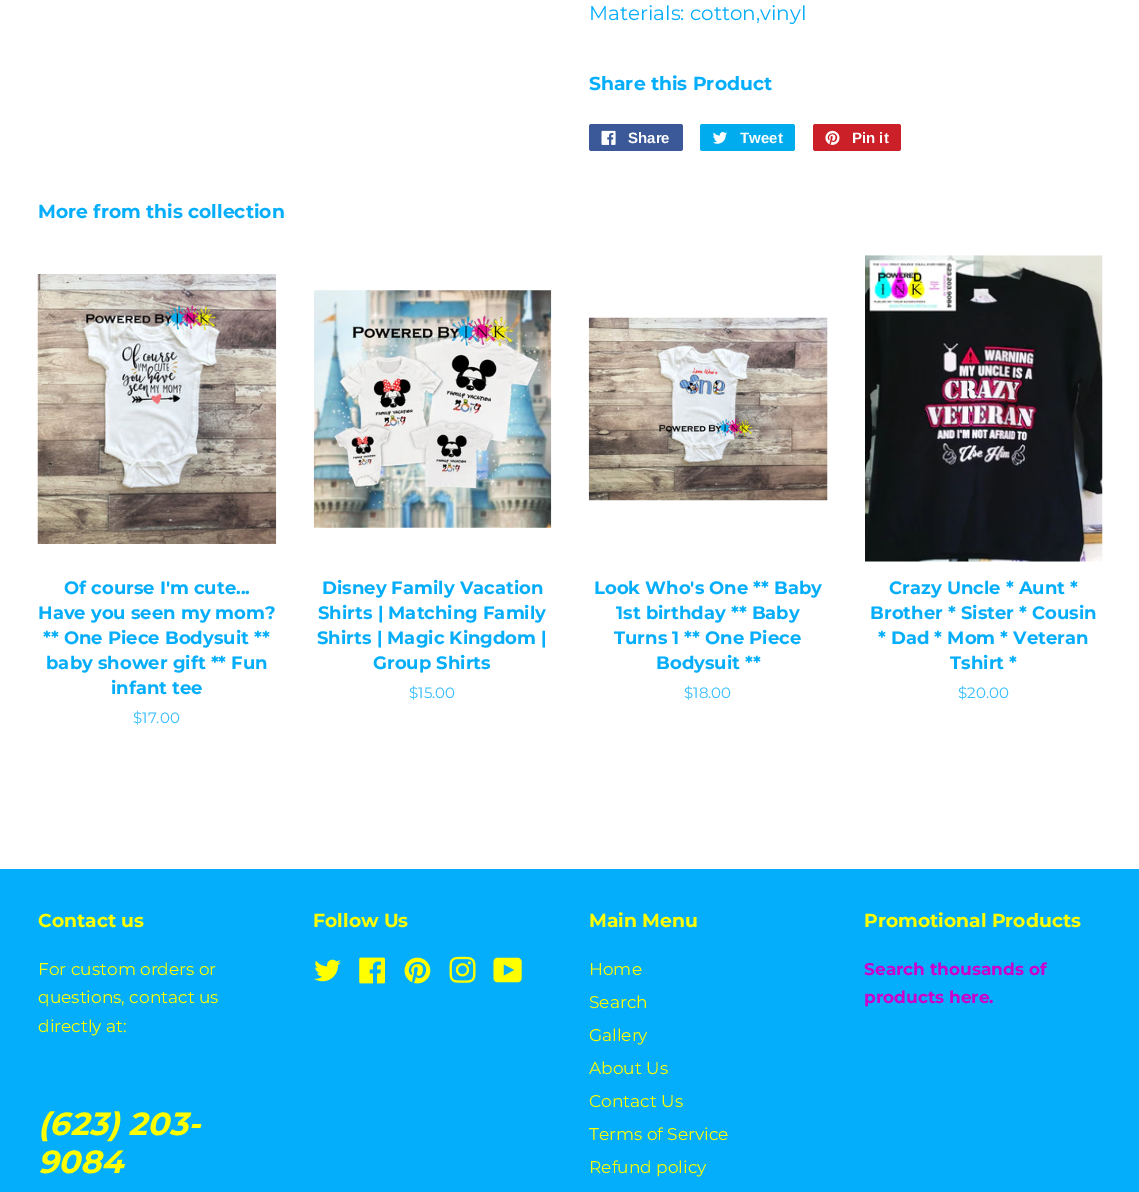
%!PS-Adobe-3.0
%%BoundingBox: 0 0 1139 1192
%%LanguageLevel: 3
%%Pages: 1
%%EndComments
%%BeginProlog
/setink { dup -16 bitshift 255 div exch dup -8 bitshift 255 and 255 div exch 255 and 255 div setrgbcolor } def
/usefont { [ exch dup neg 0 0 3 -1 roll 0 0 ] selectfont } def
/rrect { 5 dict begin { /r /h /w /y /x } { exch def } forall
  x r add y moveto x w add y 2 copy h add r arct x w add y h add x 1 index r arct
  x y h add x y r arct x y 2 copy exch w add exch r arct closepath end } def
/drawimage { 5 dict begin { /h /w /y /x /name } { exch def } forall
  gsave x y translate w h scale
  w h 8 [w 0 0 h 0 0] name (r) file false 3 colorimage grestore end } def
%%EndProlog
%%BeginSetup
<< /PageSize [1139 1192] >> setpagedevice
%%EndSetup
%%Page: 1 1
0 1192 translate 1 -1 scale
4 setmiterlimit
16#FFFFFF setink
0 0 1139 1192 rectfill
/Montserrat-Regular 20 usefont
16#05AEFB setink
589 20 moveto (Materials: cotton,vinyl) show
/Montserrat-Bold 18.75 usefont
589 90 moveto (Share this Product) show
16#3B5998 setink
589 124 94 27 2.5 rrect fill
(img1.raw) 601 130 15 15 drawimage
/LiberationSans-Bold 15 usefont
16#FFFFFF setink
628 143 moveto (Share) show
16#00ACED setink
700 124 95 27 2.5 rrect fill
(img2.raw) 713 132 14 12 drawimage
16#FFFFFF setink
740 143 moveto (Tweet) show
16#CB2027 setink
813 124 88 27 2.5 rrect fill
(img3.raw) 825 130 15 15 drawimage
16#FFFFFF setink
852 143 moveto (Pin it) show
/Montserrat-Bold 18.75 usefont
16#05AEFB setink
38 218 moveto (More from this collection) show
(img4.raw) 37 274 240 270 drawimage
/Montserrat-Bold 18 usefont
[
    [(Of course I'm cute...) 64 594]
    [(Have you seen my mom?) 38 619]
    [(** One Piece Bodysuit **) 43 644]
    [(baby shower gift ** Fun) 46 669]
    [(infant tee) 111 694]
] { aload pop moveto show } forall
/Montserrat-Regular 15 usefont
16#37BEFC setink
133 723 moveto ($17.00) show
(img5.raw) 313 290 239 238 drawimage
/Montserrat-Bold 18 usefont
16#05AEFB setink
[
    [(Disney Family Vacation) 322 594]
    [(Shirts | Matching Family) 318 619]
    [(Shirts | Magic Kingdom |) 317 644]
    [(Group Shirts) 373 669]
] { aload pop moveto show } forall
/Montserrat-Regular 15 usefont
16#37BEFC setink
409 698 moveto ($15.00) show
(img6.raw) 588 317 240 184 drawimage
/Montserrat-Bold 18 usefont
16#05AEFB setink
[
    [(Look Who's One ** Baby) 594 594]
    [(1st birthday ** Baby) 616 619]
    [(Turns 1 ** One Piece) 614 644]
    [(Bodysuit **) 656 669]
] { aload pop moveto show } forall
/Montserrat-Regular 15 usefont
16#37BEFC setink
684 698 moveto ($18.00) show
(img7.raw) 865 255 238 307 drawimage
/Montserrat-Bold 18 usefont
16#05AEFB setink
[
    [(Crazy Uncle * Aunt *) 889 594]
    [(Brother * Sister * Cousin) 870 619]
    [(* Dad * Mom * Veteran) 878 644]
    [(Tshirt *) 950 669]
] { aload pop moveto show } forall
/Montserrat-Regular 15 usefont
16#37BEFC setink
958 698 moveto ($20.00) show
16#05AEFB setink
0 869 1139 323 rectfill
/Montserrat-Bold 18.75 usefont
16#FFFF00 setink
38 927 moveto (Contact us) show
/Montserrat-Regular 17 usefont
[
    [(For custom orders or) 38 975]
    [(questions, contact us) 38 1003]
    [(directly at:) 38 1032]
] { aload pop moveto show } forall
/Montserrat-BoldItalic 32 usefont
38 1135 moveto (\(623\) 203-) show
38 1173 moveto (9084) show
/Montserrat-Bold 18.75 usefont
313 927 moveto (Follow Us) show
(img8.raw) 314 959 27 23 drawimage
(img9.raw) 359 957 26 27 drawimage
(img10.raw) 404 957 27 27 drawimage
(img11.raw) 449 956 27 27 drawimage
(img12.raw) 493 957 29 26 drawimage
589 927 moveto (Main Menu) show
/Montserrat-Regular 17 usefont
[
    [(Home) 589 975]
    [(Search) 589 1008]
    [(Gallery) 589 1041]
    [(About Us) 589 1074]
    [(Contact Us) 589 1107]
    [(Terms of Service) 589 1140]
    [(Refund policy) 589 1173]
] { aload pop moveto show } forall
/Montserrat-Bold 18.75 usefont
864 927 moveto (Promotional Products) show
/Montserrat-Bold 17 usefont
16#CC00CC setink
864 975 moveto (Search thousands of) show
864 1003 moveto (products here.) show
showpage
%%EOF
